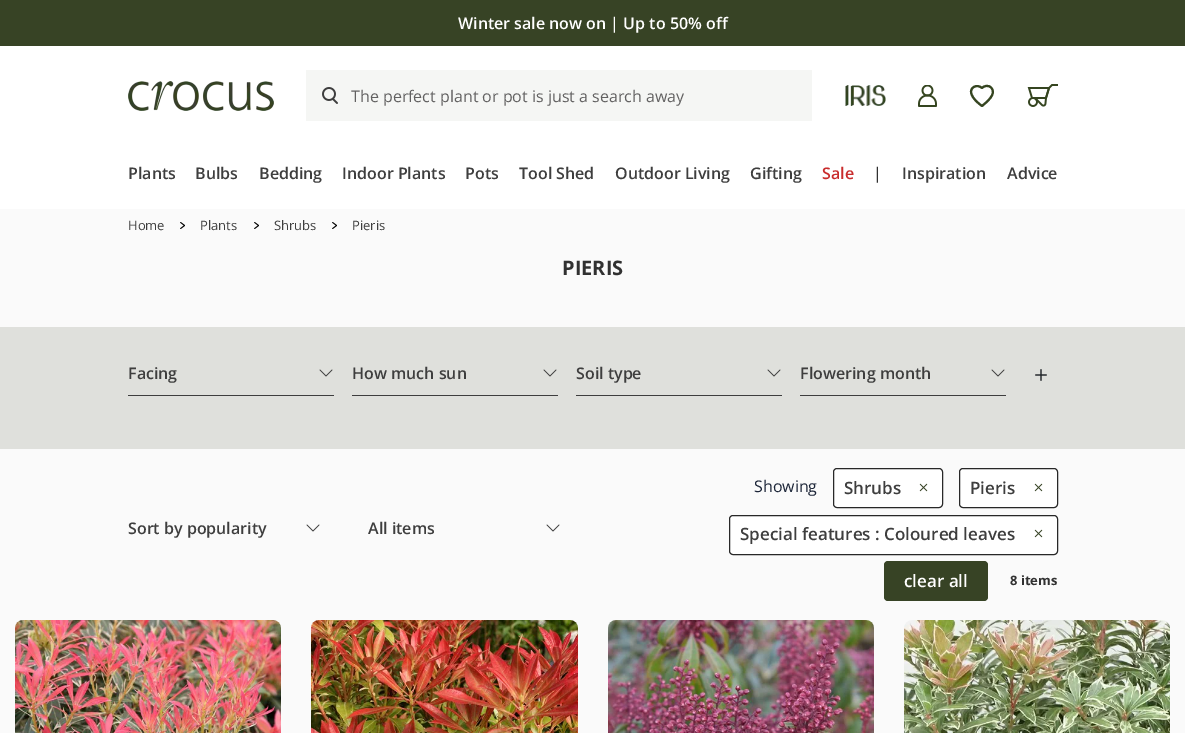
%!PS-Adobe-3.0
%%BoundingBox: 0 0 1185 733
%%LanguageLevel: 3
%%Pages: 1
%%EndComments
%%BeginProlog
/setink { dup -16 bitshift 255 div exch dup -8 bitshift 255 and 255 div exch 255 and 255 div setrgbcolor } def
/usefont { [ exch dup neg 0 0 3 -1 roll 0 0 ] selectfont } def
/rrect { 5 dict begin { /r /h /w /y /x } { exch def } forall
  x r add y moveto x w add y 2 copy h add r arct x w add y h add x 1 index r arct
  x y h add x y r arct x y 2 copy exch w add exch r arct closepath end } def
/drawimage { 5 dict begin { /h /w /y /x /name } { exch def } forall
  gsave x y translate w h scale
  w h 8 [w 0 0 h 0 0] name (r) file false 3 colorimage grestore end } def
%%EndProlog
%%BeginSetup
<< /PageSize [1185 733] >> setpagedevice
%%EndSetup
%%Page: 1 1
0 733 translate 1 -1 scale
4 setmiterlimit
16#FAFAFA setink
0 0 1185 733 rectfill
16#FFFFFF setink
0 46 1185 163 rectfill
16#374325 setink
0 0 1185 46 rectfill
/OpenSans-SemiBold 16 usefont
16#FFFFFF setink
458 29 moveto (Winter sale now on | Up to 50% off) show
(img1.raw) 128 81 146 30 drawimage
16#F5F6F4 setink
306 70 506 51 rectfill
(img2.raw) 322 87 16 17 drawimage
/OpenSans-Regular 16 usefont
16#626161 setink
351 102 moveto (The perfect plant or pot is just a search away) show
(img3.raw) 845 85 41 21 drawimage
(img4.raw) 918 85 19 22 drawimage
16#354520 setink
2.1 setlinewidth
1 setlinecap
1 setlinejoin
991 87.5 moveto 988.5 85 984.5 85.5 982 88 curveto 977 83.5 969 87.5 971.5 94 curveto 973 99 978 103 982 106 curveto 986 102.5 997.5 94 991 87.5 curveto closepath stroke
(img5.raw) 1027 84 31 23 drawimage
/OpenSans-SemiBold 16 usefont
16#3E3E3E setink
[
    [(Plants) 128 179]
    [(Bulbs) 195 179]
    [(Bedding) 259 179]
    [(Indoor Plants) 342 179]
    [(Pots) 465 179]
    [(Tool Shed) 519 179]
    [(Outdoor Living) 615 179]
    [(Gifting) 750 179]
] { aload pop moveto show } forall
16#C92C2C setink
822 179 moveto (Sale) show
/OpenSans-Regular 16 usefont
16#313131 setink
873 179 moveto (|) show
/OpenSans-SemiBold 16 usefont
16#3E3E3E setink
902 179 moveto (Inspiration) show
1007 179 moveto (Advice) show
/OpenSans-Regular 13 usefont
128 230 moveto (Home) show
(img6.raw) 180 222 5 7 drawimage
200 230 moveto (Plants) show
(img6.raw) 254 222 5 7 drawimage
274 230 moveto (Shrubs) show
(img6.raw) 332 222 5 7 drawimage
352 230 moveto (Pieris) show
/OpenSans-Bold 20 usefont
16#313131 setink
562 275 moveto (PIERIS) show
16#DFE0DC setink
0 327 1185 122 rectfill
16#3E3E3E setink
128 395 206 1 rectfill
/OpenSans-SemiBold 16 usefont
128 379 moveto (Facing) show
(img7.raw) 319 369 14 8 drawimage
352 395 206 1 rectfill
352 379 moveto (How much sun) show
(img7.raw) 543 369 14 8 drawimage
576 395 206 1 rectfill
576 379 moveto (Soil type) show
(img7.raw) 767 369 14 8 drawimage
800 395 206 1 rectfill
800 379 moveto (Flowering month) show
(img7.raw) 991 369 14 8 drawimage
(img8.raw) 1035 369 12 12 drawimage
128 534 moveto (Sort by popularity) show
(img9.raw) 306 524 14 8 drawimage
368 534 moveto (All items) show
(img9.raw) 546 524 14 8 drawimage
/OpenSans-Regular 16 usefont
16#1B2437 setink
754 492 moveto (Showing) show
16#FFFFFF setink
833.5 468.5 109 39 3.5 rrect gsave fill grestore
16#282828 setink
1 setlinewidth
0 setlinecap
0 setlinejoin
stroke
/OpenSans-SemiBold 17 usefont
16#3E3E3E setink
844 494 moveto (Shrubs) show
(img10.raw) 919 483 9 9 drawimage
16#FFFFFF setink
959.5 468.5 98 39 3.5 rrect gsave fill grestore
16#282828 setink
stroke
16#3E3E3E setink
970 494 moveto (Pieris) show
(img10.raw) 1034 483 9 9 drawimage
16#FFFFFF setink
729.5 515.5 328 39 3.5 rrect gsave fill grestore
16#282828 setink
stroke
16#3E3E3E setink
740 540 moveto (Special features : Coloured leaves) show
(img10.raw) 1034 529 9 9 drawimage
16#374325 setink
884 561 104 40 4 rrect fill
16#FFFFFF setink
904 587 moveto (clear all) show
/OpenSans-Bold 13 usefont
16#313131 setink
1010 585 moveto (8 items) show
(img11.raw) 15 620 266 113 drawimage
(img12.raw) 311 620 267 113 drawimage
(img13.raw) 608 620 266 113 drawimage
(img14.raw) 904 620 266 113 drawimage
showpage
%%EOF
